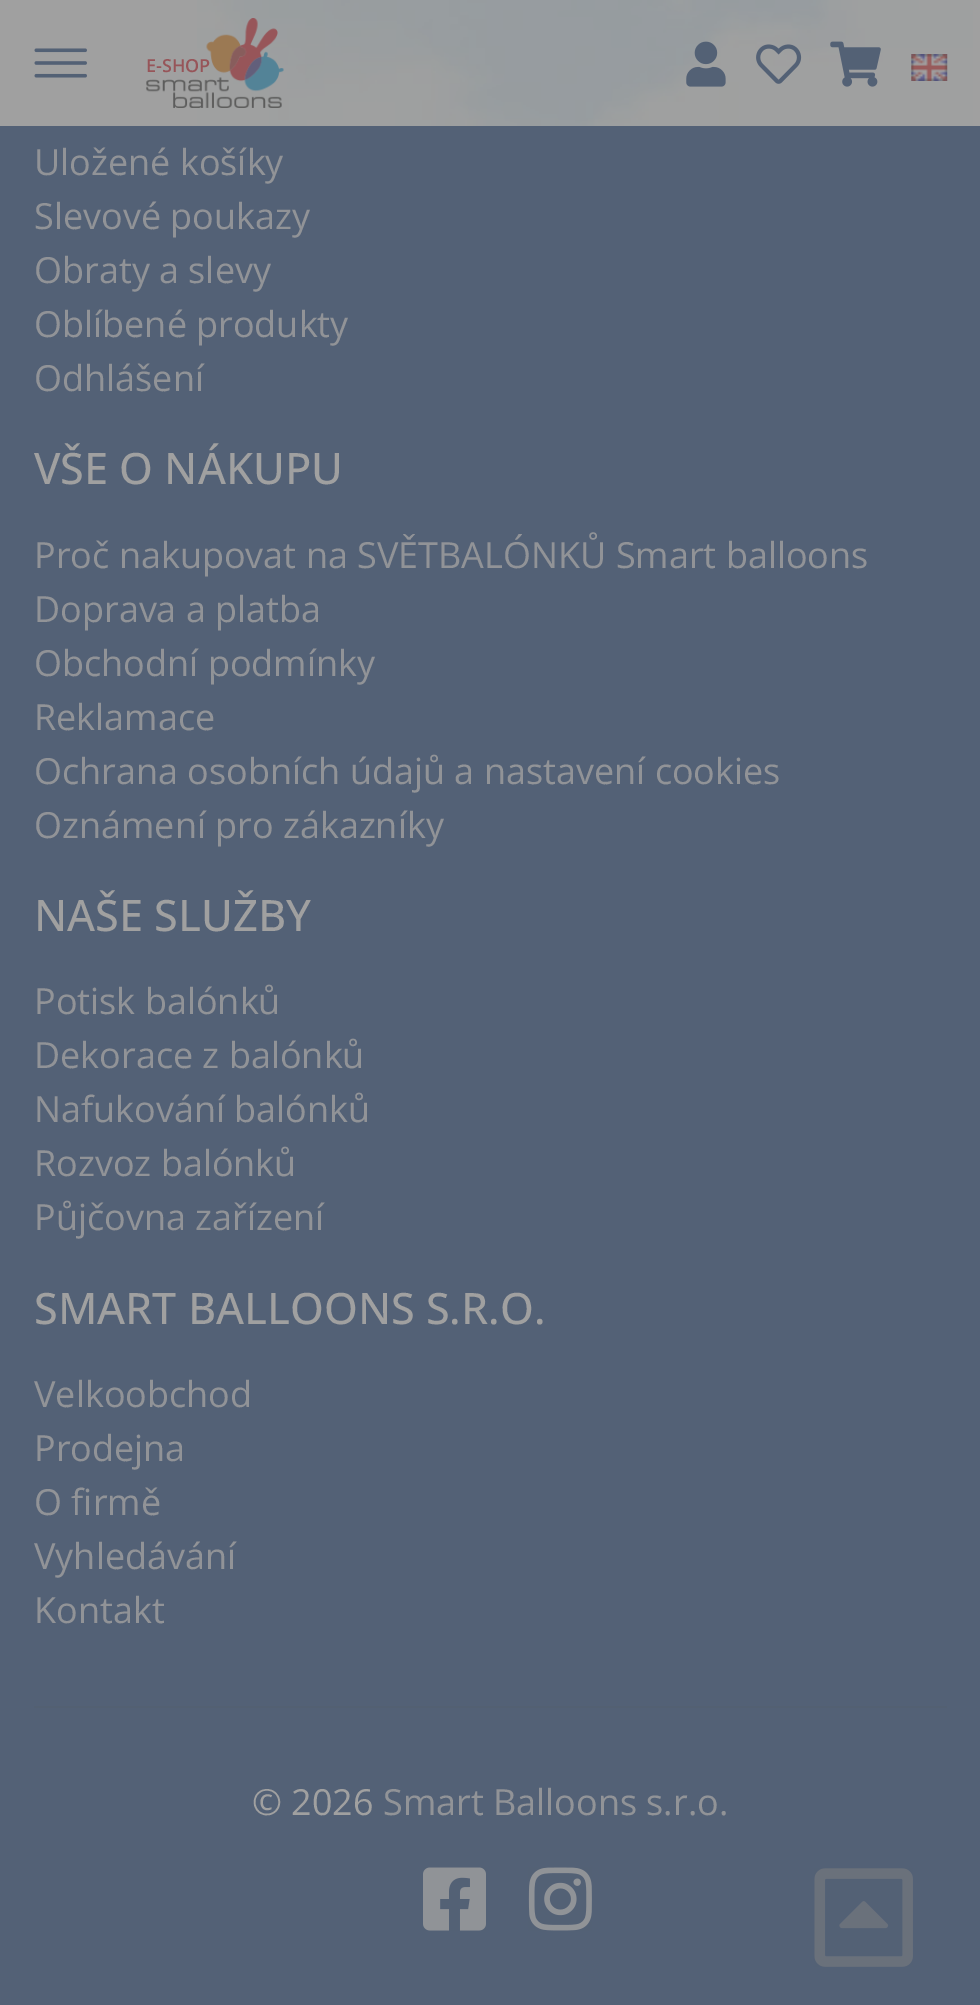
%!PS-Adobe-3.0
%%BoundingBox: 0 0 980 2005
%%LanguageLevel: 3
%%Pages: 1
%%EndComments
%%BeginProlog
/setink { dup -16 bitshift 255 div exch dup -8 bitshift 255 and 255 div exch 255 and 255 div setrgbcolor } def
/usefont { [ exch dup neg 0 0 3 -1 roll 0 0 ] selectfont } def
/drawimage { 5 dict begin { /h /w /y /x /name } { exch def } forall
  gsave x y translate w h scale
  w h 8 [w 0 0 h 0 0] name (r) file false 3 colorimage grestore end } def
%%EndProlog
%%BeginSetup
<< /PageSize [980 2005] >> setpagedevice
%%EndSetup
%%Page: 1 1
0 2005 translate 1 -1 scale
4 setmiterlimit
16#536176 setink
0 0 980 2005 rectfill
16#A0A0A0 setink
0 0 980 126 rectfill
(img1.raw) 197 0 776 126 drawimage
(img2.raw) 34 48 53 30 drawimage
(img3.raw) 146 18 138 90 drawimage
/OpenSans-SemiBold 18 usefont
16#975559 setink
146 72 moveto (E-SHOP) show
(img4.raw) 686 41 40 46 drawimage
(img5.raw) 756 44 46 40 drawimage
(img6.raw) 830 41 51 46 drawimage
(img7.raw) 911 54 37 27 drawimage
/OpenSans-Regular 36 usefont
16#919397 setink
[
    [(Uložené košíky) 34 175]
    [(Slevové poukazy) 34 229]
    [(Obraty a slevy) 34 283]
    [(Oblíbené produkty) 34 337]
    [(Odhlášení) 34 391]
] { aload pop moveto show } forall
/OpenSans-Medium 43.25 usefont
16#A0A0A0 setink
34 484 moveto (VŠE O NÁKUPU) show
/OpenSans-Regular 36 usefont
16#919397 setink
[
    [(Proč nakupovat na SVĚTBALÓNKŮ Smart balloons) 34 568]
    [(Doprava a platba) 34 622]
    [(Obchodní podmínky) 34 676]
    [(Reklamace) 34 730]
    [(Ochrana osobních údajů a nastavení cookies) 34 784]
    [(Oznámení pro zákazníky) 34 838]
] { aload pop moveto show } forall
/OpenSans-Medium 43.25 usefont
16#A0A0A0 setink
34 931 moveto (NAŠE SLUŽBY) show
/OpenSans-Regular 36 usefont
16#919397 setink
[
    [(Potisk balónků) 34 1014]
    [(Dekorace z balónků) 34 1068]
    [(Nafukování balónků) 34 1122]
    [(Rozvoz balónků) 34 1176]
    [(Půjčovna zařízení) 34 1230]
] { aload pop moveto show } forall
/OpenSans-Medium 43.25 usefont
16#A0A0A0 setink
34 1324 moveto (SMART BALLOONS S.R.O.) show
/OpenSans-Regular 36 usefont
16#919397 setink
[
    [(Velkoobchod) 34 1407]
    [(Prodejna) 34 1461]
    [(O firmě) 34 1515]
    [(Vyhledávání) 34 1569]
    [(Kontakt) 34 1623]
] { aload pop moveto show } forall
16#536072 setink
34 1706 913 2 rectfill
16#A0A0A0 setink
252 1815 moveto (© 2026) show
16#919397 setink
383 1815 moveto (Smart Balloons s.r.o.) show
(img8.raw) 423 1867 63 64 drawimage
(img9.raw) 528 1867 64 64 drawimage
(img10.raw) 814 1868 99 99 drawimage
showpage
%%EOF
